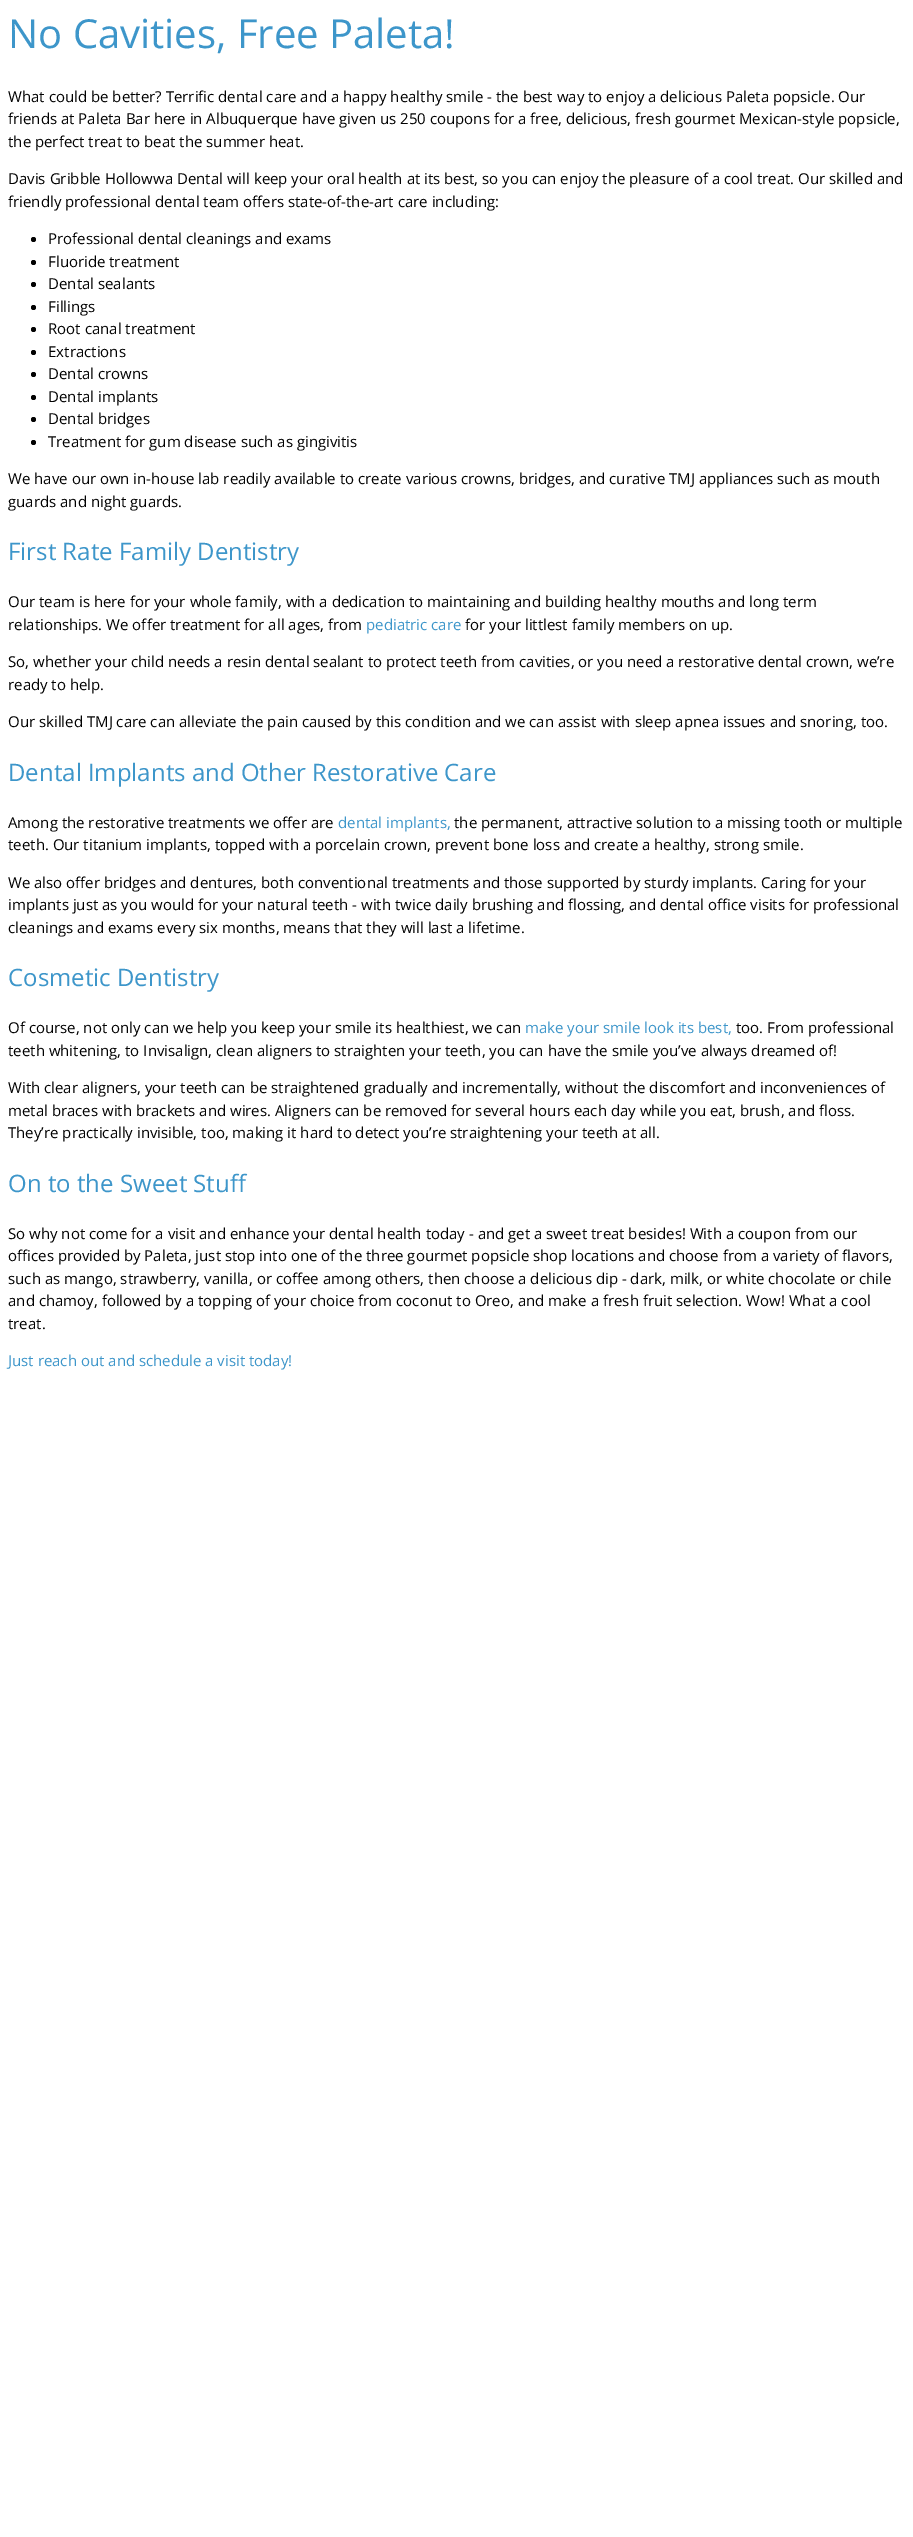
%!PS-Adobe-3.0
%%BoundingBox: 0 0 913 2537
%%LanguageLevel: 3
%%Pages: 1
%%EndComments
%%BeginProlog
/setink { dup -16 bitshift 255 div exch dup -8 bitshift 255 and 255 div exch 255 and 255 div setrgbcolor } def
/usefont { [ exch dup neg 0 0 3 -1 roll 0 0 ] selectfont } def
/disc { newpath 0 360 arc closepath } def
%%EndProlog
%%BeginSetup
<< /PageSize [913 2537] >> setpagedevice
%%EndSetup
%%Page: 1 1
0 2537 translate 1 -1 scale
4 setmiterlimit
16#FFFFFF setink
0 0 913 2537 rectfill
/OpenSans-Regular 40 usefont
16#3D96CA setink
8 48 moveto (No Cavities, Free Paleta!) show
/OpenSans-Regular 15 usefont
16#010101 setink
[
    [(What could be better? Terrific dental care and a happy healthy smile - the best way to enjoy a delicious Paleta popsicle. Our) 8 102]
    [(friends at Paleta Bar here in Albuquerque have given us 250 coupons for a free, delicious, fresh gourmet Mexican-style popsicle,) 8 124]
    [(the perfect treat to beat the summer heat.) 8 147]
    [(Davis Gribble Hollowwa Dental will keep your oral health at its best, so you can enjoy the pleasure of a cool treat. Our skilled and) 8 184]
    [(friendly professional dental team offers state-of-the-art care including:) 8 207]
] { aload pop moveto show } forall
33.5 239.5 2.5 disc fill
48 244 moveto (Professional dental cleanings and exams) show
33.5 262.5 2.5 disc fill
48 267 moveto (Fluoride treatment) show
33.5 284.5 2.5 disc fill
48 289 moveto (Dental sealants) show
33.5 307.5 2.5 disc fill
48 312 moveto (Fillings) show
33.5 329.5 2.5 disc fill
48 334 moveto (Root canal treatment) show
33.5 352.5 2.5 disc fill
48 357 moveto (Extractions) show
33.5 374.5 2.5 disc fill
48 379 moveto (Dental crowns) show
33.5 397.5 2.5 disc fill
48 402 moveto (Dental implants) show
33.5 419.5 2.5 disc fill
48 424 moveto (Dental bridges) show
33.5 442.5 2.5 disc fill
[
    [(Treatment for gum disease such as gingivitis) 48 447]
    [(We have our own in-house lab readily available to create various crowns, bridges, and curative TMJ appliances such as mouth) 8 484]
    [(guards and night guards.) 8 507]
] { aload pop moveto show } forall
/OpenSans-Regular 24 usefont
16#3D96CA setink
8 560 moveto (First Rate Family Dentistry) show
/OpenSans-Regular 15 usefont
16#010101 setink
8 607 moveto (Our team is here for your whole family, with a dedication to maintaining and building healthy mouths and long term) show
8 630 moveto (relationships. We offer treatment for all ages, from) show
16#3D96CA setink
366 630 moveto (pediatric care) show
16#010101 setink
[
    [(for your littlest family members on up.) 465 630]
    [(So, whether your child needs a resin dental sealant to protect teeth from cavities, or you need a restorative dental crown, we’re) 8 667]
    [(ready to help.) 8 690]
    [(Our skilled TMJ care can alleviate the pain caused by this condition and we can assist with sleep apnea issues and snoring, too.) 8 727]
] { aload pop moveto show } forall
/OpenSans-Regular 24 usefont
16#3D96CA setink
8 781 moveto (Dental Implants and Other Restorative Care) show
/OpenSans-Regular 15 usefont
16#010101 setink
8 828 moveto (Among the restorative treatments we offer are) show
16#3D96CA setink
338 828 moveto (dental implants,) show
16#010101 setink
[
    [(the permanent, attractive solution to a missing tooth or multiple) 454 828]
    [(teeth. Our titanium implants, topped with a porcelain crown, prevent bone loss and create a healthy, strong smile.) 8 850]
    [(We also offer bridges and dentures, both conventional treatments and those supported by sturdy implants. Caring for your) 8 888]
    [(implants just as you would for your natural teeth - with twice daily brushing and flossing, and dental office visits for professional) 8 910]
    [(cleanings and exams every six months, means that they will last a lifetime.) 8 933]
] { aload pop moveto show } forall
/OpenSans-Regular 24 usefont
16#3D96CA setink
8 986 moveto (Cosmetic Dentistry) show
/OpenSans-Regular 15 usefont
16#010101 setink
8 1033 moveto (Of course, not only can we help you keep your smile its healthiest, we can) show
16#3D96CA setink
525 1033 moveto (make your smile look its best,) show
16#010101 setink
[
    [(too. From professional) 736 1033]
    [(teeth whitening, to Invisalign, clean aligners to straighten your teeth, you can have the smile you’ve always dreamed of!) 8 1056]
    [(With clear aligners, your teeth can be straightened gradually and incrementally, without the discomfort and inconveniences of) 8 1093]
    [(metal braces with brackets and wires. Aligners can be removed for several hours each day while you eat, brush, and floss.) 8 1116]
    [(They’re practically invisible, too, making it hard to detect you’re straightening your teeth at all.) 8 1138]
] { aload pop moveto show } forall
/OpenSans-Regular 24 usefont
16#3D96CA setink
8 1192 moveto (On to the Sweet Stuff) show
/OpenSans-Regular 15 usefont
16#010101 setink
[
    [(So why not come for a visit and enhance your dental health today - and get a sweet treat besides! With a coupon from our) 8 1239]
    [(offices provided by Paleta, just stop into one of the three gourmet popsicle shop locations and choose from a variety of flavors,) 8 1261]
    [(such as mango, strawberry, vanilla, or coffee among others, then choose a delicious dip - dark, milk, or white chocolate or chile) 8 1284]
    [(and chamoy, followed by a topping of your choice from coconut to Oreo, and make a fresh fruit selection. Wow! What a cool) 8 1306]
    [(treat.) 8 1329]
] { aload pop moveto show } forall
16#3D96CA setink
8 1366 moveto (Just reach out and schedule a visit today!) show
showpage
%%EOF
